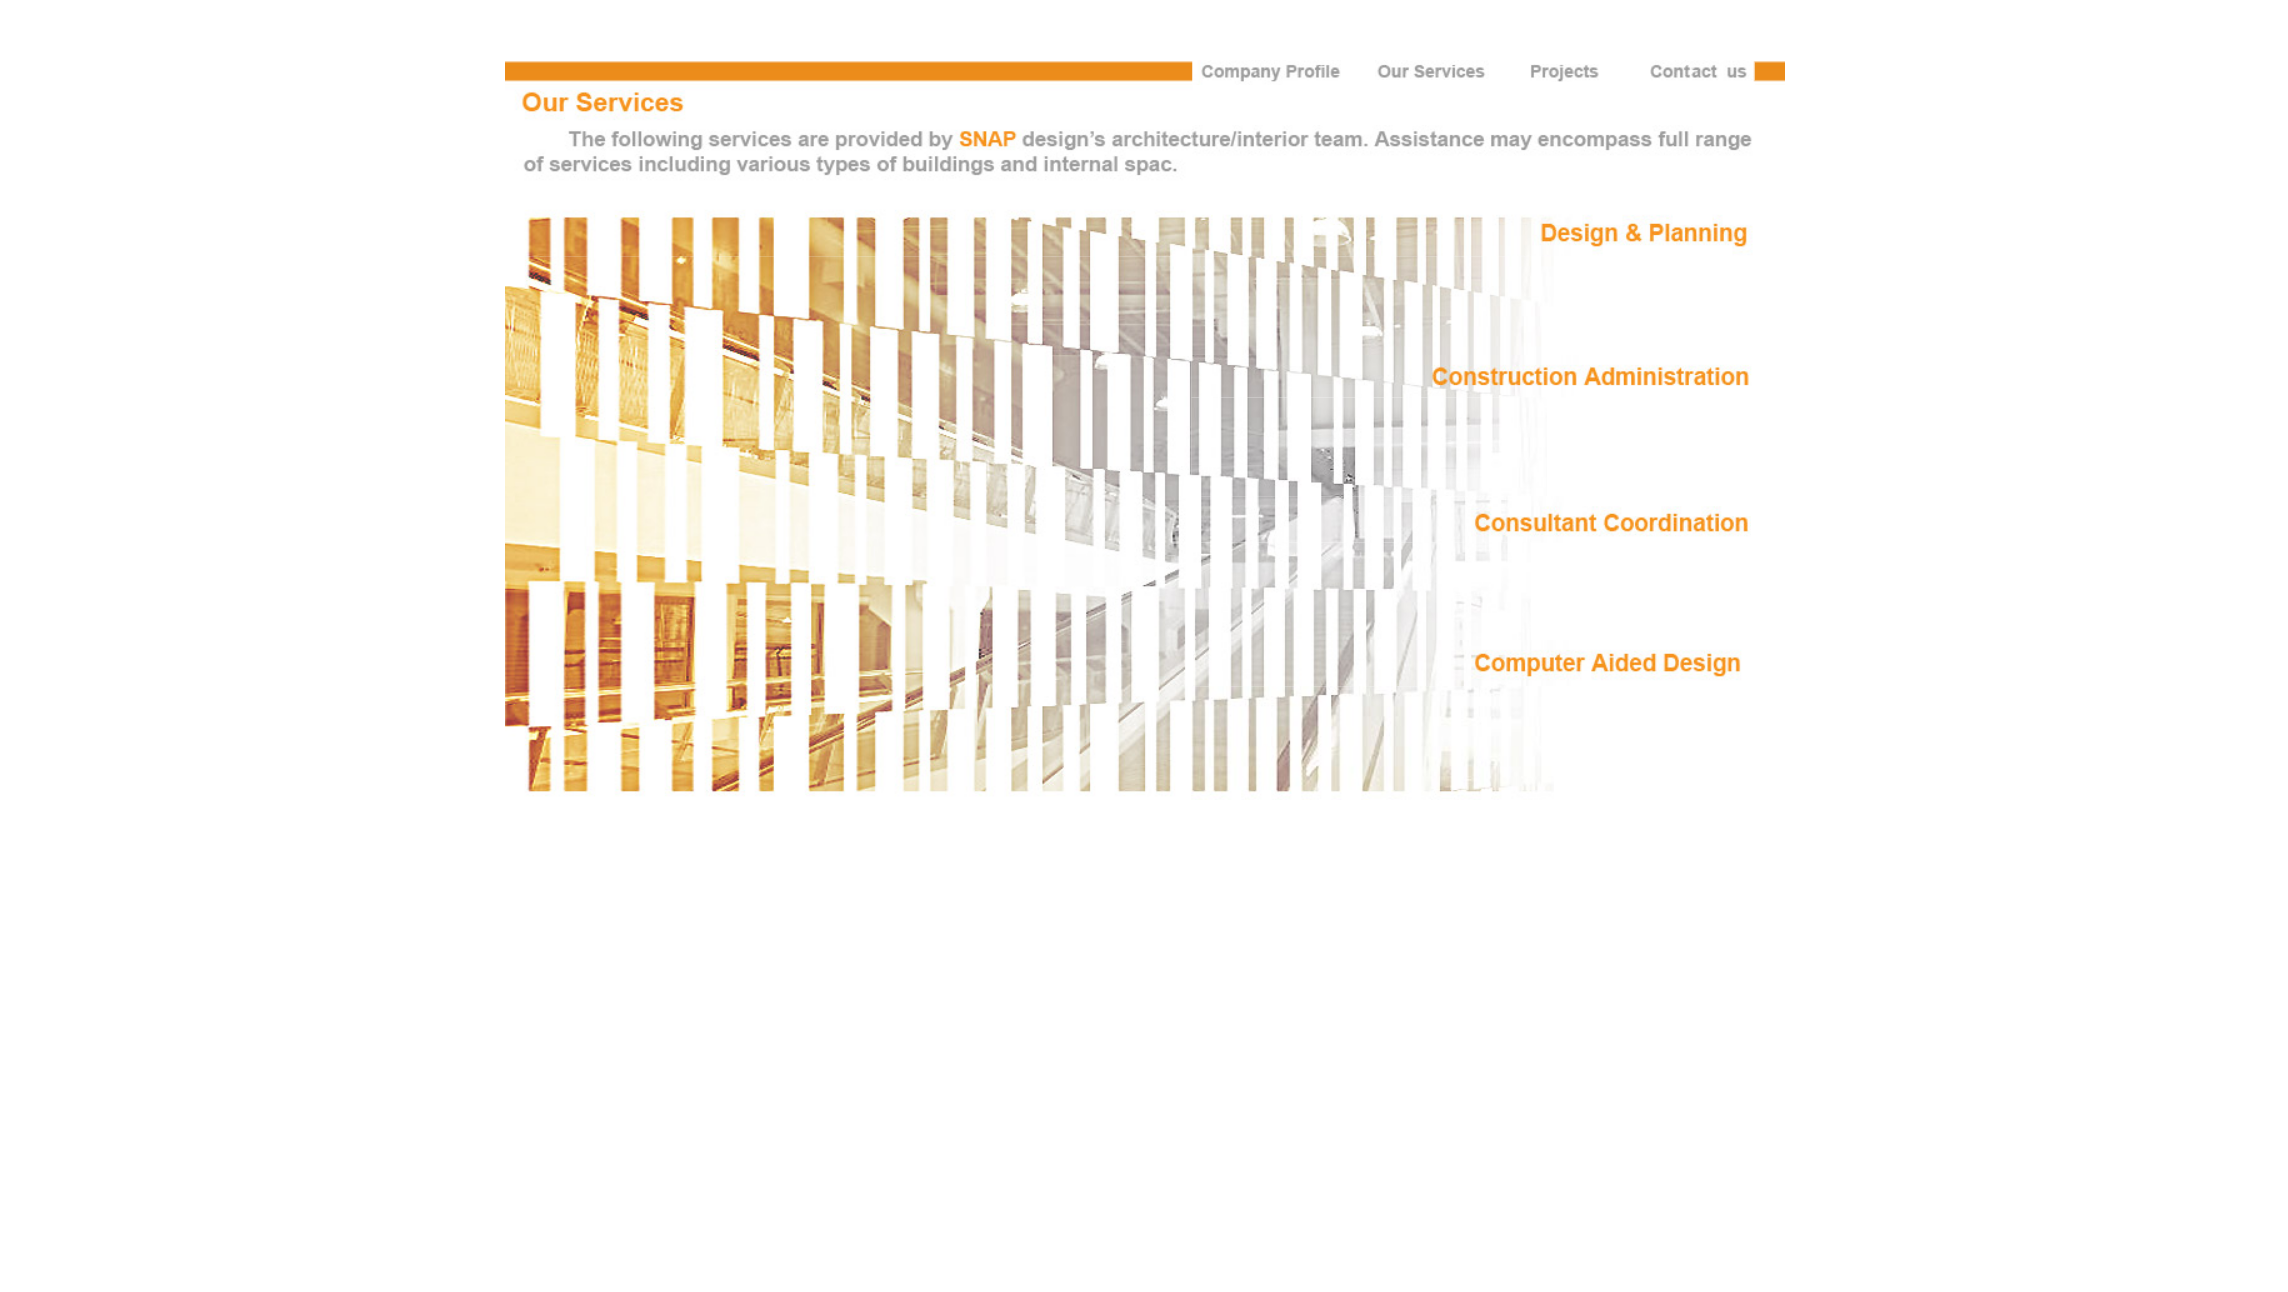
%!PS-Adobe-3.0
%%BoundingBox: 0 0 2288 1292
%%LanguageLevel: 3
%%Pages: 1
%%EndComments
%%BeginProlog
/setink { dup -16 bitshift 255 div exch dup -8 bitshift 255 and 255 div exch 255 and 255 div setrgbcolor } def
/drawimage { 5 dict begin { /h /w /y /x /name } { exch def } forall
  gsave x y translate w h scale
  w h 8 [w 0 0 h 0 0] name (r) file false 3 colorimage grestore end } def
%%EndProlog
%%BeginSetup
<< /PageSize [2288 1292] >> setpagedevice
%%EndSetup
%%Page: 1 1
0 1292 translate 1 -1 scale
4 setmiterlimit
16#FFFFFF setink
0 0 2288 1292 rectfill
(img1.raw) 505 61 688 196 drawimage
(img2.raw) 1192 60 149 25 drawimage
(img3.raw) 1375 60 114 20 drawimage
(img4.raw) 1530 64 69 18 drawimage
(img5.raw) 1650 60 105 22 drawimage
(img6.raw) 1755 61 30 24 drawimage
(img7.raw) 1192 125 561 132 drawimage
(img8.raw) 505 256 687 541 drawimage
(img9.raw) 1191 256 363 99 drawimage
(img10.raw) 1191 355 561 43 drawimage
(img11.raw) 1191 397 356 100 drawimage
(img12.raw) 1201 496 550 47 drawimage
(img13.raw) 1193 542 338 98 drawimage
(img14.raw) 1193 640 549 47 drawimage
(img15.raw) 1191 686 363 104 drawimage
(img16.raw) 1191 790 363 10 drawimage
showpage
%%EOF
